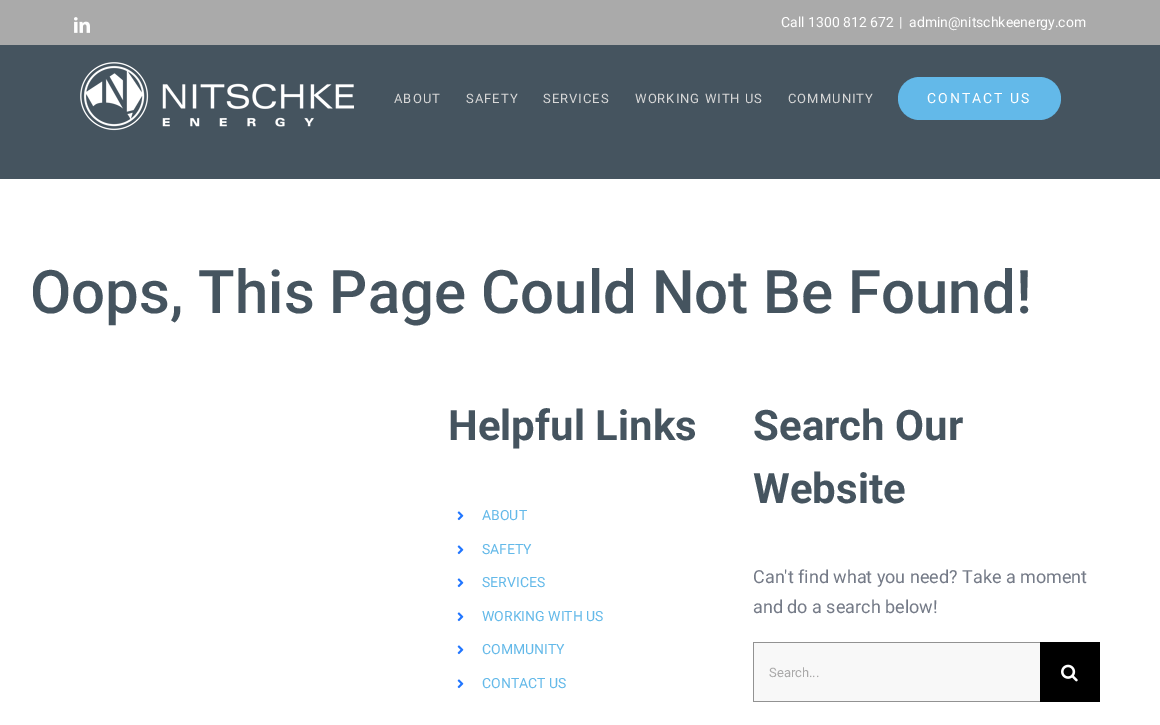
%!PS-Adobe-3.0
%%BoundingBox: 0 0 1160 725
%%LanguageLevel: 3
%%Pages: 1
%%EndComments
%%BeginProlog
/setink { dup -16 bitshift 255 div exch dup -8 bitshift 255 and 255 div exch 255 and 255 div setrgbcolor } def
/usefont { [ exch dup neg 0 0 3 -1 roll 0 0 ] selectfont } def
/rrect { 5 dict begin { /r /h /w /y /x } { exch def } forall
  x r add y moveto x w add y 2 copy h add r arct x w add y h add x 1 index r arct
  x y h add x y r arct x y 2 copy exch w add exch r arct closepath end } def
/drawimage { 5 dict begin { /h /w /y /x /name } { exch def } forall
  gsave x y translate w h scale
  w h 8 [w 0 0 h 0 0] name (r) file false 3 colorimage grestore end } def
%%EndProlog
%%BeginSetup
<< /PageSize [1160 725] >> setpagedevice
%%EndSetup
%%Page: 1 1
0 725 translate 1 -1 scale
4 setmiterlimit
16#FFFFFF setink
0 0 1160 725 rectfill
16#AAAAAA setink
0 0 1160 45 rectfill
(img1.raw) 74 17 16 16 drawimage
/Roboto-Regular 14 usefont
16#FFFFFF setink
[
    [(Call 1300 812 672) 781 27]
    [(|) 899 27]
    [(admin@nitschkeenergy.com) 909 27]
] { aload pop moveto show } forall
16#45545F setink
0 45 1160 134 rectfill
(img2.raw) 80 62 274 69 drawimage
/Roboto-Regular 13 usefont
16#D8D8D8 setink
394 103 moveto 1 0 (ABOUT) ashow
466 103 moveto 1 0 (SAFETY) ashow
543 103 moveto 1 0 (SERVICES) ashow
635 103 moveto 1 0 (WORKING WITH US) ashow
788 103 moveto 1 0 (COMMUNITY) ashow
16#63B9E9 setink
898 77 163 43 21.5 rrect fill
/Roboto-Regular 14 usefont
16#FFFFFF setink
927 103 moveto 2 0 (CONTACT US) ashow
/Roboto-Medium 60 usefont
16#45545F setink
30 313 moveto (Oops, This Page Could Not Be Found!) show
/Roboto-Bold 42 usefont
448 440 moveto (Helpful Links) show
(img3.raw) 457 511 7 10 drawimage
/Roboto-Regular 14 usefont
16#63B9E9 setink
482 520 moveto (ABOUT) show
(img3.raw) 457 545 7 10 drawimage
482 554 moveto (SAFETY) show
(img3.raw) 457 578 7 10 drawimage
482 587 moveto (SERVICES) show
(img3.raw) 457 612 7 10 drawimage
482 621 moveto (WORKING WITH US) show
(img3.raw) 457 645 7 10 drawimage
482 654 moveto (COMMUNITY) show
(img3.raw) 457 679 7 10 drawimage
482 688 moveto (CONTACT US) show
/Roboto-Bold 42 usefont
16#45545F setink
753 440 moveto (Search Our) show
753 503 moveto (Website) show
/Roboto-Regular 18 usefont
16#747A87 setink
753 583 moveto (Can't find what you need? Take a moment) show
753 613 moveto (and do a search below!) show
[
    [754 643 286 58 16#F8F8F8]
    [753 642 287 1 16#929292]
    [753 701 287 1 16#929292]
    [753 642 1 60 16#929292]
] { aload pop setink rectfill } forall
/Roboto-Regular 13 usefont
16#AAA9A9 setink
769 677 moveto (Search...) show
16#000000 setink
1040 642 60 60 rectfill
(img4.raw) 1061 664 17 18 drawimage
showpage
%%EOF
